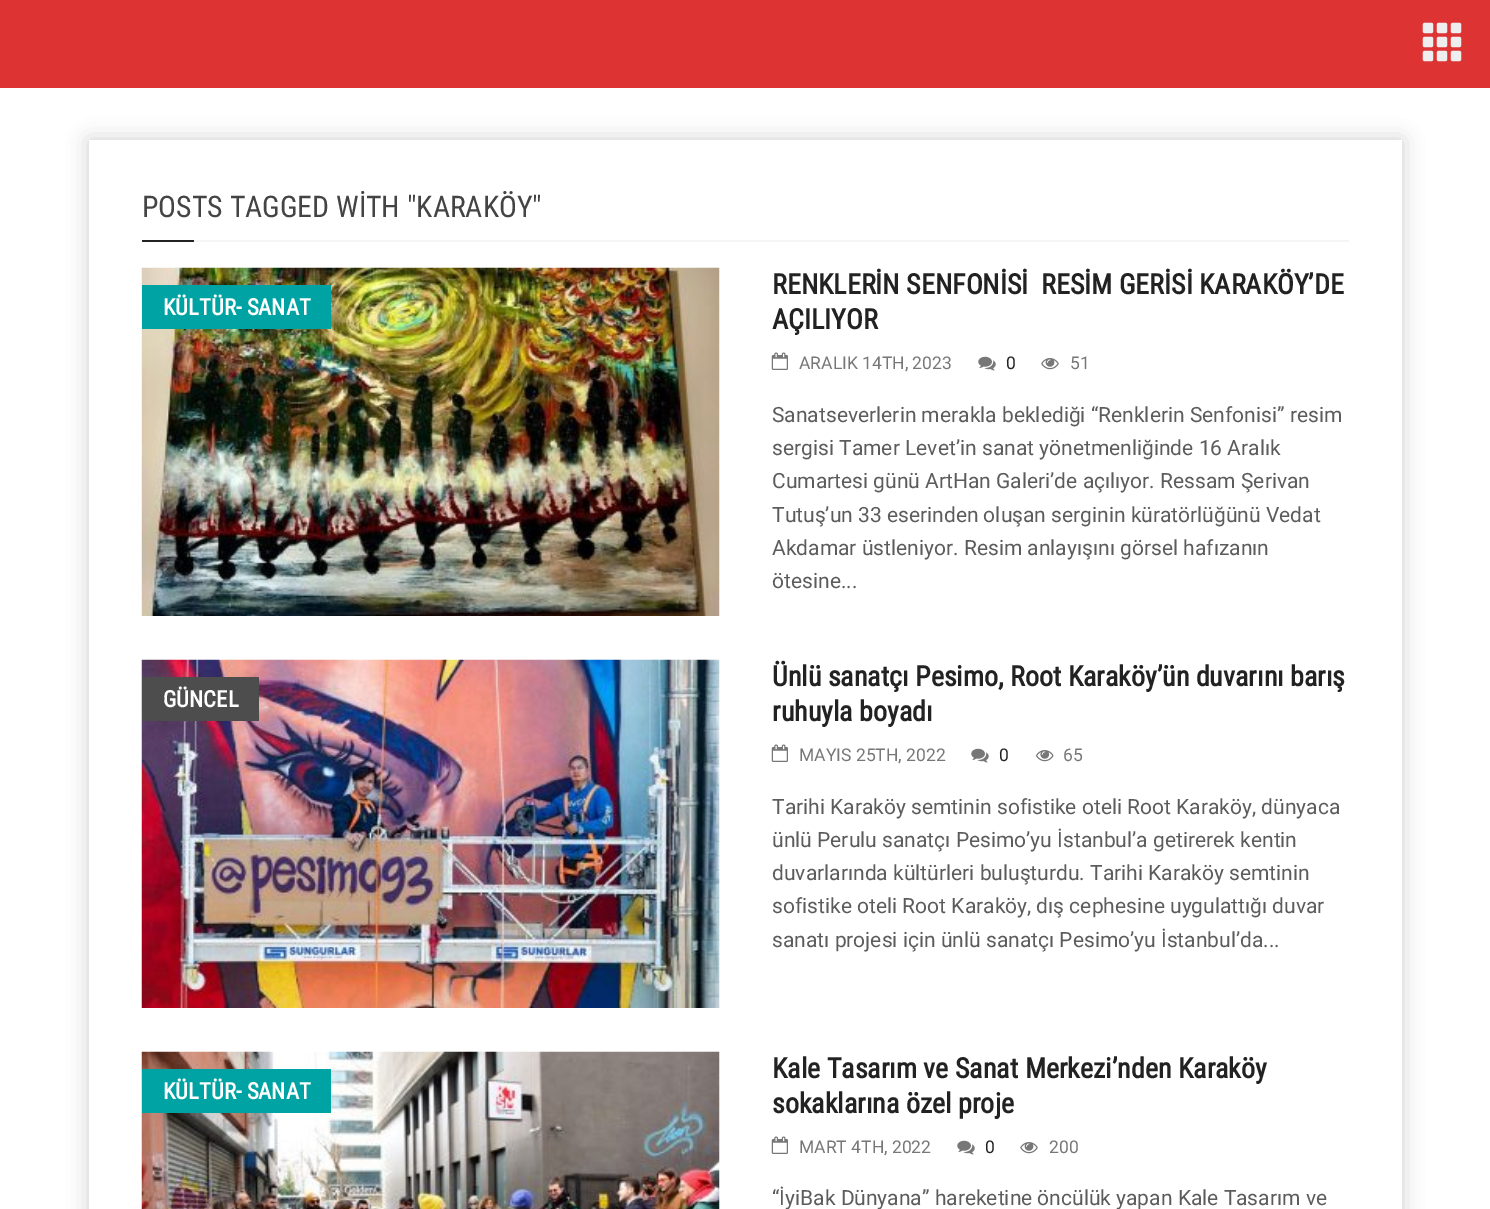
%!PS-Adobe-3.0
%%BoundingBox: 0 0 1490 1209
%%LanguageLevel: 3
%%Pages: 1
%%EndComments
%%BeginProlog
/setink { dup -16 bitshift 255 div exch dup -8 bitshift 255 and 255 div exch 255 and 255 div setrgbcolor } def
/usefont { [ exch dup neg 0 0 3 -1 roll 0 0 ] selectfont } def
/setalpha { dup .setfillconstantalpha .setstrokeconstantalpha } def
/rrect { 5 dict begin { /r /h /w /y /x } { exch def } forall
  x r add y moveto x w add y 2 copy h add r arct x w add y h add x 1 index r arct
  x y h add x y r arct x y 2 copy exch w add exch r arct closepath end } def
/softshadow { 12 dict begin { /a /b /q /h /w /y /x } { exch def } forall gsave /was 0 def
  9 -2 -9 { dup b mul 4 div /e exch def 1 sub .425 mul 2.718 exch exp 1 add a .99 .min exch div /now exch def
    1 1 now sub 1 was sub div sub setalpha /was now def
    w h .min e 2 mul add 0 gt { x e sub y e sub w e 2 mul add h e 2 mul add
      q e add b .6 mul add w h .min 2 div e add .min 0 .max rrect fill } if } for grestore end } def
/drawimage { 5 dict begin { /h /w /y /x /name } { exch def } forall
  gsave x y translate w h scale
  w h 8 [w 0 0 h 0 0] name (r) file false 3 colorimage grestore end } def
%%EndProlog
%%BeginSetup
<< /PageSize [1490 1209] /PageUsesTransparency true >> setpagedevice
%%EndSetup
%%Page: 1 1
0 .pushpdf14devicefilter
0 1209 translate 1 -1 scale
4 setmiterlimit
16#FFFFFF setink
0 0 1490 1209 rectfill
16#DD3333 setink
0 0 1490 88 rectfill
(img1.raw) 1422 22 40 40 drawimage
16#CCCCCC setink
89 140 1313 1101 0 10.5 1 softshadow
16#FFFFFF setink
89 140 1313 1069 rectfill
16#F5F5F5 setink
194 240 1155 2 rectfill
/RobotoCondensed-Regular 29.75 usefont
16#444444 setink
142 217 moveto (POSTS TAGGED WİTH "KARAKÖY") show
16#222222 setink
142 240 52 2 rectfill
(img2.raw) 141 267 579 349 drawimage
16#00A3A3 setink
142 285 189 44 rectfill
/RobotoCondensed-Bold 22.75 usefont
16#FFFFFF setink
163 315 moveto (KÜLTÜR- SANAT) show
/RobotoCondensed-Bold 28 usefont
16#222222 setink
772 294 moveto (RENKLERİN SENFONİSİ  RESİM GERİSİ KARAKÖY’DE) show
772 329 moveto (AÇILIYOR) show
(img3.raw) 771 352 17 18 drawimage
/Roboto-Regular 17.5 usefont
16#777777 setink
799 369 moveto (ARALIK 14TH, 2023) show
(img4.raw) 978 356 18 15 drawimage
16#222222 setink
1006 369 moveto (0) show
(img5.raw) 1041 358 18 12 drawimage
16#777777 setink
1070 369 moveto (51) show
/Roboto-Regular 21 usefont
16#5C5C5C setink
[
    [(Sanatseverlerin merakla beklediği “Renklerin Senfonisi” resim) 772 422]
    [(sergisi Tamer Levet’in sanat yönetmenliğinde 16 Aralık) 772 455]
    [(Cumartesi günü ArtHan Galeri’de açılıyor. Ressam Şerivan) 772 488]
    [(Tutuş’un 33 eserinden oluşan serginin küratörlüğünü Vedat) 772 522]
    [(Akdamar üstleniyor. Resim anlayışını görsel hafızanın) 772 555]
    [(ötesine...) 772 588]
] { aload pop moveto show } forall
(img6.raw) 141 659 579 349 drawimage
16#4D4D4D setink
142 677 117 44 rectfill
/RobotoCondensed-Bold 22.75 usefont
16#FFFFFF setink
163 707 moveto (GÜNCEL) show
/RobotoCondensed-Bold 28 usefont
16#222222 setink
772 686 moveto (Ünlü sanatçı Pesimo, Root Karaköy’ün duvarını barış) show
772 721 moveto (ruhuyla boyadı) show
(img3.raw) 771 744 17 18 drawimage
/Roboto-Regular 17.5 usefont
16#777777 setink
799 761 moveto (MAYIS 25TH, 2022) show
(img4.raw) 971 748 18 15 drawimage
16#222222 setink
999 761 moveto (0) show
(img7.raw) 1036 750 18 12 drawimage
16#777777 setink
1063 761 moveto (65) show
/Roboto-Regular 21 usefont
16#5C5C5C setink
[
    [(Tarihi Karaköy semtinin sofistike oteli Root Karaköy, dünyaca) 772 814]
    [(ünlü Perulu sanatçı Pesimo’yu İstanbul’a getirerek kentin) 772 847]
    [(duvarlarında kültürleri buluşturdu. Tarihi Karaköy semtinin) 772 880]
    [(sofistike oteli Root Karaköy, dış cephesine uygulattığı duvar) 772 913]
    [(sanatı projesi için ünlü sanatçı Pesimo’yu İstanbul’da...) 772 947]
] { aload pop moveto show } forall
(img8.raw) 141 1051 579 158 drawimage
16#00A3A3 setink
142 1069 189 44 rectfill
/RobotoCondensed-Bold 22.75 usefont
16#FFFFFF setink
163 1099 moveto (KÜLTÜR- SANAT) show
/RobotoCondensed-Bold 28 usefont
16#222222 setink
772 1078 moveto (Kale Tasarım ve Sanat Merkezi’nden Karaköy) show
772 1113 moveto (sokaklarına özel proje) show
(img3.raw) 771 1136 17 18 drawimage
/Roboto-Regular 17.5 usefont
16#777777 setink
799 1153 moveto (MART 4TH, 2022) show
(img4.raw) 957 1140 18 15 drawimage
16#222222 setink
985 1153 moveto (0) show
(img5.raw) 1020 1142 18 12 drawimage
16#777777 setink
1049 1153 moveto (200) show
/Roboto-Regular 21 usefont
16#5C5C5C setink
772 1205 moveto (“İyiBak Dünyana” hareketine öncülük yapan Kale Tasarım ve) show
.poppdf14devicefilter showpage
%%EOF
